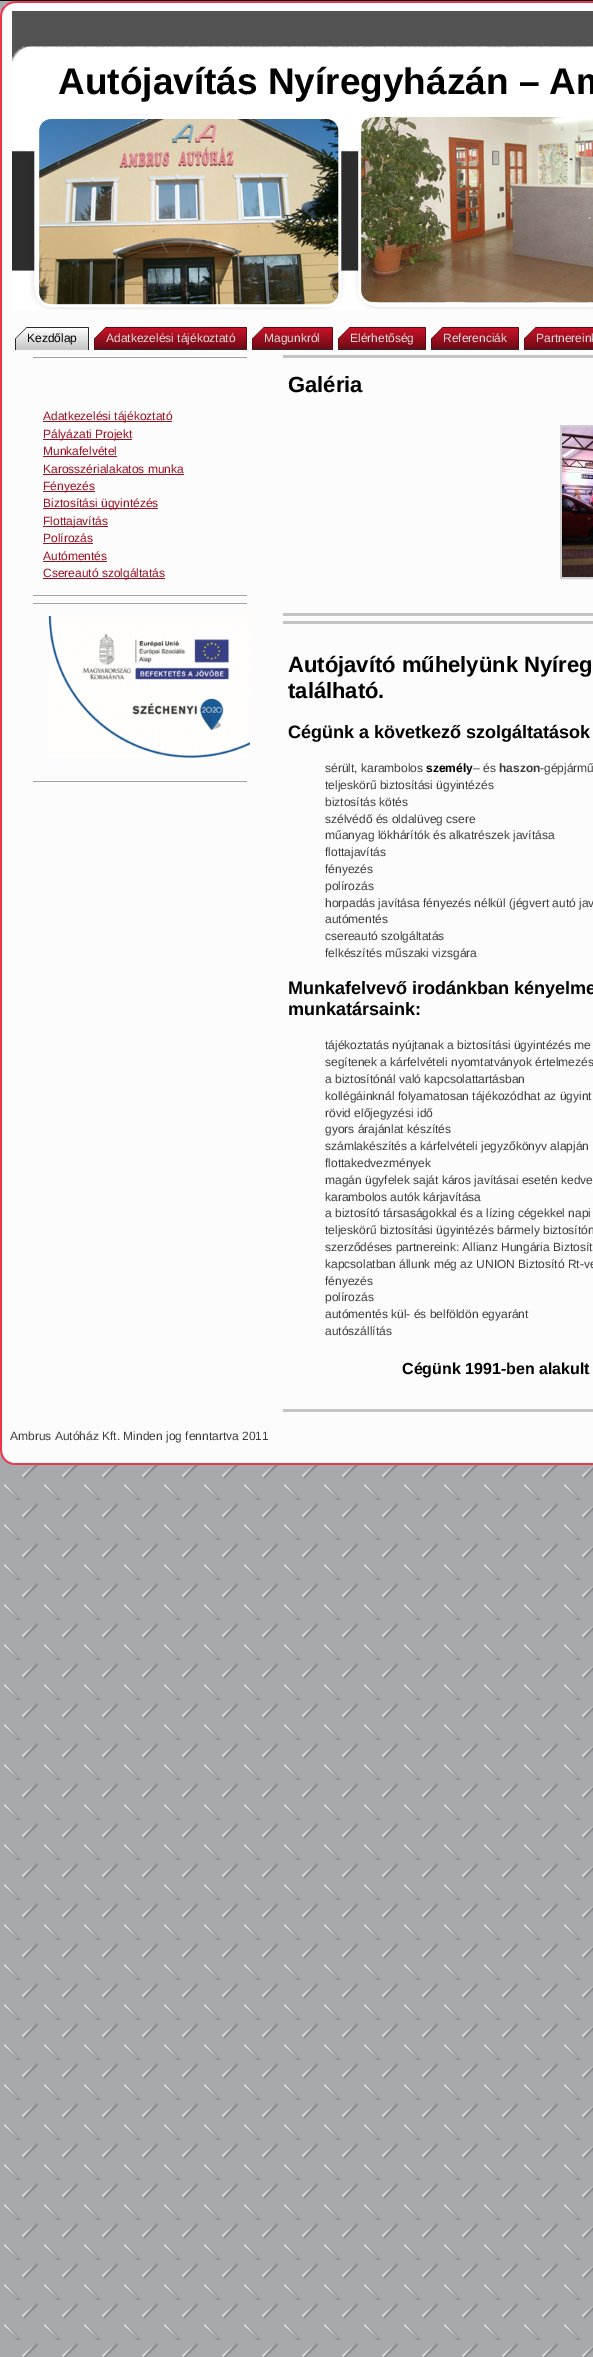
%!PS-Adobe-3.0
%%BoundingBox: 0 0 593 2357
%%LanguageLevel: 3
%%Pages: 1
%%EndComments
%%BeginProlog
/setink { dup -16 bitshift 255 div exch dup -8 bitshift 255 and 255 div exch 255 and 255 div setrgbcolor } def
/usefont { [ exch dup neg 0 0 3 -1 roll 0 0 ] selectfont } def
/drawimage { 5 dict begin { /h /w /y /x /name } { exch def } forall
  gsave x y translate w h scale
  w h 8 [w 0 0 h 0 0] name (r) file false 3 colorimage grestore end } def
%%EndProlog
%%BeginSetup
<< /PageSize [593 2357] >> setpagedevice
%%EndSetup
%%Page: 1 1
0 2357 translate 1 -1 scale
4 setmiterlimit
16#FFFFFF setink
0 0 593 2357 rectfill
(img1.raw) 0 1 593 2356 drawimage
16#050505 setink
0 0 593 1 rectfill
(img2.raw) 0 1 15 15 drawimage
(img3.raw) 15 1 578 10 drawimage
(img4.raw) 0 16 15 1434 drawimage
(img5.raw) 12 11 581 299 drawimage
/LiberationSans-Bold 37 usefont
16#000000 setink
58 94 moveto (Autójavítás Nyíregyházán – Am) show
16#FCFCFC setink
15 310 578 1140 rectfill
(img6.raw) 15 327 62 23 drawimage
(img7.raw) 77 327 12 23 drawimage
/LiberationSans-Regular 12 usefont
16#000000 setink
27 342 moveto (Kezdőlap) show
(img8.raw) 94 327 141 23 drawimage
(img9.raw) 235 327 12 23 drawimage
16#DEDEDE setink
106 342 moveto (Adatkezelési tájékoztató) show
(img10.raw) 252 327 69 23 drawimage
(img9.raw) 321 327 12 23 drawimage
264 342 moveto (Magunkról) show
(img11.raw) 338 327 76 23 drawimage
(img9.raw) 414 327 12 23 drawimage
350 342 moveto (Elérhetőség) show
(img11.raw) 431 327 76 23 drawimage
(img9.raw) 507 327 12 23 drawimage
443 342 moveto (Referenciák) show
(img12.raw) 524 327 69 23 drawimage
536 342 moveto (Partnereink) show
16#A3A3A3 setink
33 357 214 1 rectfill
16#A00E1F setink
43 421 129 1 rectfill
43 420 moveto (Adatkezelési tájékoztató) show
43 439 89 1 rectfill
43 438 moveto (Pályázati Projekt) show
43 455 moveto (Munkafelvétel) show
43 456 74 1 rectfill
43 473 moveto (Karosszérialakatos munka) show
43 474 141 1 rectfill
43 491 52 1 rectfill
43 490 moveto (Fényezés) show
43 508 115 1 rectfill
43 507 moveto (Biztosítási ügyintézés) show
43 526 65 1 rectfill
43 525 moveto (Flottajavítás) show
43 542 moveto (Polírozás) show
43 543 50 1 rectfill
43 560 moveto (Autómentés) show
43 561 64 1 rectfill
43 578 122 1 rectfill
43 577 moveto (Csereautó szolgáltatás) show
16#A3A3A3 setink
33 595 214 1 rectfill
33 603 214 1 rectfill
(img13.raw) 48 616 202 142 drawimage
33 781 214 1 rectfill
16#C4C4C4 setink
283 355 310 3 rectfill
/LiberationSans-Bold 22 usefont
16#000000 setink
288 392 moveto (Galéria) show
16#CFCFCF setink
2 setlinewidth
561 426 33 152 rectstroke
(img14.raw) 562 427 31 150 drawimage
16#C4C4C4 setink
283 613 310 3 rectfill
283 621 310 3 rectfill
16#000000 setink
288 672 moveto (Autójavító műhelyünk Nyíreg) show
288 698 moveto (található.) show
/LiberationSans-Bold 18 usefont
288 738 moveto (Cégünk a következő szolgáltatások) show
/LiberationSans-Regular 12 usefont
16#3D3D3D setink
325 772 moveto (sérült, karambolos) show
/LiberationSans-Bold 12 usefont
16#000000 setink
426 772 moveto (személy) show
/LiberationSans-Regular 12 usefont
16#3D3D3D setink
473 772 moveto (– és) show
/LiberationSans-Bold 12 usefont
499 772 moveto (haszon) show
/LiberationSans-Regular 12 usefont
[
    [(-gépjármű) 540 772]
    [(teljeskörű biztosítási ügyintézés) 325 789]
    [(biztosítás kötés) 325 806]
    [(szélvédő és oldalüveg csere) 325 823]
    [(műanyag lökhárítók és alkatrészek javítása) 325 839]
    [(flottajavítás) 325 856]
    [(fényezés) 325 873]
    [(polírozás) 325 890]
    [(horpadás javítása fényezés nélkül \(jégvert autó jav) 325 907]
    [(autómentés) 325 923]
    [(csereautó szolgáltatás) 325 940]
    [(felkészítés műszaki vizsgára) 325 957]
] { aload pop moveto show } forall
/LiberationSans-Bold 18 usefont
16#000000 setink
288 994 moveto (Munkafelvevő irodánkban kényelme) show
288 1015 moveto (munkatársaink:) show
/LiberationSans-Regular 12 usefont
16#3D3D3D setink
[
    [(tájékoztatás nyújtanak a biztosítási ügyintézés me) 325 1049]
    [(segítenek a kárfelvételi nyomtatványok értelmezés) 325 1066]
    [(a biztosítónál való kapcsolattartásban) 325 1083]
    [(kollégáinknál folyamatosan tájékozódhat az ügyint) 325 1100]
    [(rövid előjegyzési idő) 325 1117]
    [(gyors árajánlat készítés) 325 1133]
    [(számlakészítés a kárfelvételi jegyzőkönyv alapján) 325 1150]
    [(flottakedvezmények) 325 1167]
    [(magán ügyfelek saját káros javításai esetén kedve) 325 1184]
    [(karambolos autók kárjavítása) 325 1201]
    [(a biztosító társaságokkal és a lízing cégekkel napi) 325 1217]
    [(teljeskörű biztosítási ügyintézés bármely biztosítón) 325 1234]
    [(szerződéses partnereink: Allianz Hungária Biztosít) 325 1251]
    [(kapcsolatban állunk még az UNION Biztosító Rt-ve) 325 1268]
    [(fényezés) 325 1285]
    [(polírozás) 325 1301]
    [(autómentés kül- és belföldön egyaránt) 325 1318]
    [(autószállítás) 325 1335]
] { aload pop moveto show } forall
/LiberationSans-Bold 16 usefont
16#000000 setink
402 1374 moveto (Cégünk 1991-ben alakult) show
16#C4C4C4 setink
283 1409 310 3 rectfill
/LiberationSans-Regular 12 usefont
16#3D3D3D setink
10 1440 moveto (Ambrus Autóház Kft. Minden jog fenntartva 2011) show
(img15.raw) 0 1450 15 15 drawimage
(img16.raw) 15 1450 578 15 drawimage
showpage
%%EOF
